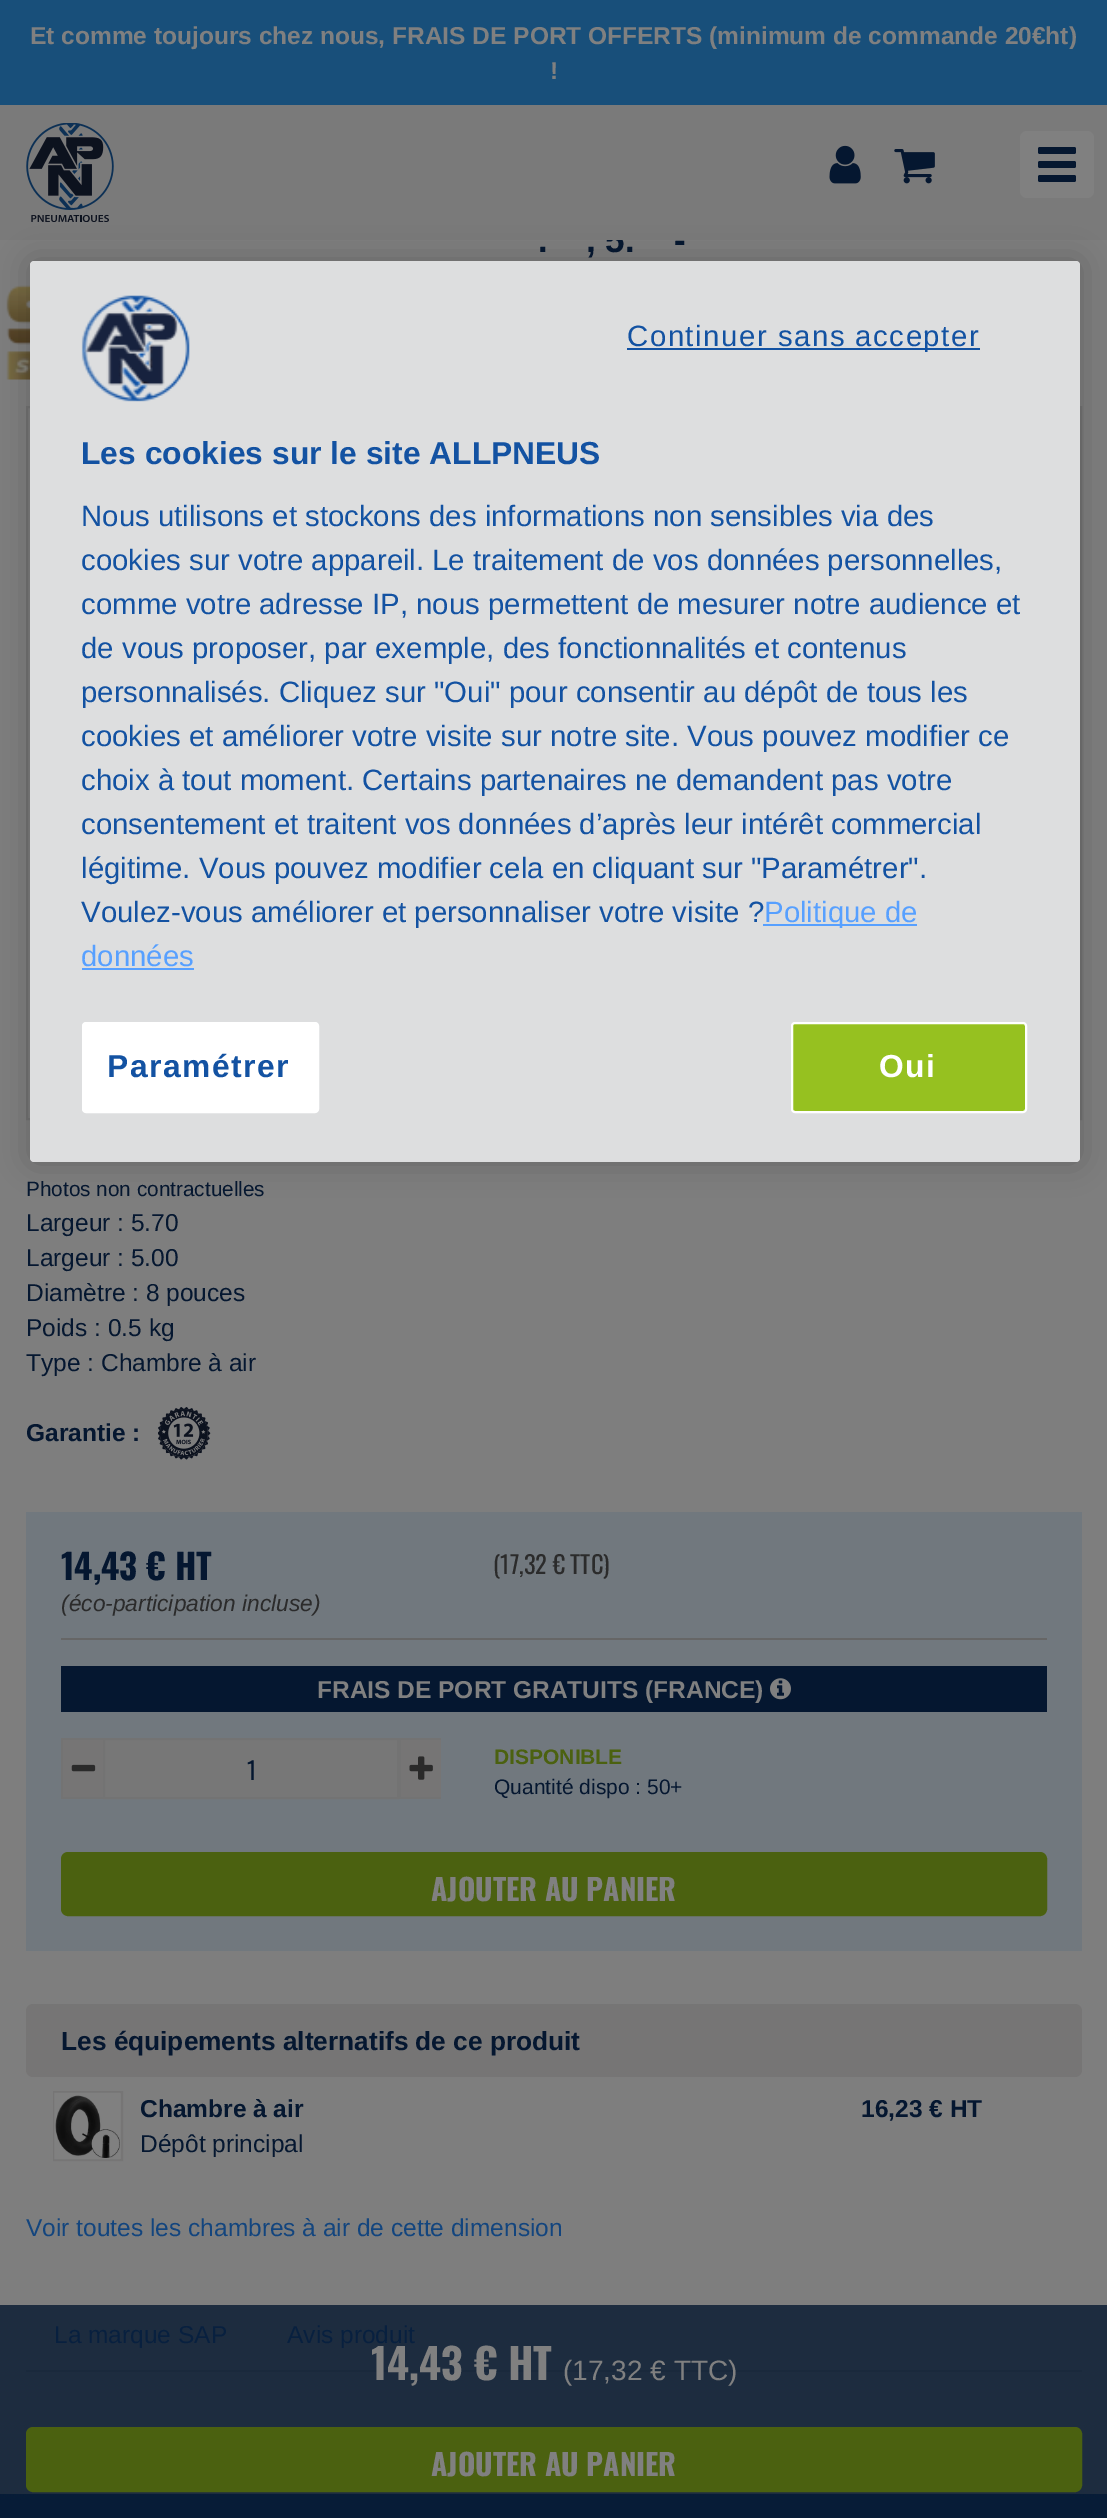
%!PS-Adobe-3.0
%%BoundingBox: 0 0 1107 2518
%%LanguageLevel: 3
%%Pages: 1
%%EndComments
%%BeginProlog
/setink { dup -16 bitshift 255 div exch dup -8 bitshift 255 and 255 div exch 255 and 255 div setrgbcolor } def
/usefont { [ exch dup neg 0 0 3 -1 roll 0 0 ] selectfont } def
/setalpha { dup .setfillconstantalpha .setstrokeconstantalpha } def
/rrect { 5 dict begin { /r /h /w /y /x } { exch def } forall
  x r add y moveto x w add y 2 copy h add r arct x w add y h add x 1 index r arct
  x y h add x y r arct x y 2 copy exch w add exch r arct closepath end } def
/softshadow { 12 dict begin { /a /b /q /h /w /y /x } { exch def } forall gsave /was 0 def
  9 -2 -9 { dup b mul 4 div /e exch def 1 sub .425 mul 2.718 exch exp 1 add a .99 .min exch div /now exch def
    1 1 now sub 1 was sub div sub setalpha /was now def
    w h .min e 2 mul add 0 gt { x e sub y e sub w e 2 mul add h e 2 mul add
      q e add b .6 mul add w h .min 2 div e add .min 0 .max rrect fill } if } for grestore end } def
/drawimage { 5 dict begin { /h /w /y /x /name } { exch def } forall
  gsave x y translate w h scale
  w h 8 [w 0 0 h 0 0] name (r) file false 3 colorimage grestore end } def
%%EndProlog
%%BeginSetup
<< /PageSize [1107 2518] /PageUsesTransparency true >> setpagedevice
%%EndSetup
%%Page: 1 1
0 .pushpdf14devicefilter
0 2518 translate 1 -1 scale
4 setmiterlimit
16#7E7E7E setink
0 0 1107 2518 rectfill
16#1D2C3F setink
0 2305 1107 189 rectfill
16#184F7A setink
0 0 1107 105 rectfill
/LiberationSans-Bold 24.5 usefont
16#808080 setink
30 44 moveto (Et comme toujours chez nous, FRAIS DE PORT OFFERTS \(minimum de commande 20€ht\)) show
550 79 moveto (!) show
/LiberationSans-Bold 35 usefont
16#051730 setink
586 252 moveto (, 5.) show
16#7A7A7A setink
0 105 1107 135 rectfill
(img1.raw) 26 123 88 99 drawimage
(img2.raw) 829 145 32 39 drawimage
(img3.raw) 894 149 41 35 drawimage
16#808080 setink
1020 131 74 67 7 rrect fill
16#051730 setink
1038 147 38 7 2 rrect fill
1038 161 38 7 2 rrect fill
1038 175 38 7 2 rrect fill
674 252 moveto (-) show
538 252 moveto (.) show
(img4.raw) 6 285 24 95 drawimage
16#737373 setink
2 setlinewidth
27 407 1054 712 rectstroke
/LiberationSans-Regular 20.75 usefont
16#051730 setink
26 1196 moveto (Photos non contractuelles) show
/LiberationSans-Regular 24.5 usefont
[
    [(Largeur : 5.70) 26 1231]
    [(Largeur : 5.00) 26 1266]
    [(Diamètre : 8 pouces) 26 1301]
    [(Poids : 0.5 kg) 26 1336]
    [(Type : Chambre à air) 26 1371]
] { aload pop moveto show } forall
/LiberationSans-Bold 24.5 usefont
26 1441 moveto (Garantie :) show
(img5.raw) 158 1407 53 53 drawimage
16#71787E setink
26 1512 1056 439 rectfill
16#666666 setink
61 1638 986 2 rectfill
/Oswald-Bold 35 usefont
16#051730 setink
61 1580 moveto (14,43 € HT) show
/Oswald-Regular 24.5 usefont
16#2B2B2B setink
493 1574 moveto (\(17,32 € TTC\)) show
/LiberationSans-Italic 22.75 usefont
61 1611 moveto (\(éco-participation incluse\)) show
16#051730 setink
61 1666 986 46 rectfill
/LiberationSans-Bold 24.5 usefont
16#808080 setink
317 1698 moveto (FRAIS DE PORT GRATUITS \(FRANCE\)) show
(img6.raw) 770 1678 21 22 drawimage
[
    [63 1740 40 57 16#767575]
    [61 1738 42 2 16#737373]
    [61 1797 42 2 16#737373]
    [61 1738 2 61 16#737373]
] { aload pop setink rectfill } forall
(img7.raw) 71 1764 25 8 drawimage
16#777777 setink
104 1739 moveto 398 1739 lineto 398 1798 lineto 104 1798 lineto closepath gsave fill grestore
16#737373 setink
stroke
/Oswald-Regular 24.5 usefont
16#051730 setink
247 1780 moveto (1) show
[
    [401 1740 40 57 16#767575]
    [399 1738 42 2 16#737373]
    [399 1797 42 2 16#737373]
    [399 1738 2 61 16#737373]
] { aload pop setink rectfill } forall
(img8.raw) 409 1756 24 24 drawimage
/LiberationSans-Bold 21 usefont
16#4B6110 setink
494 1764 moveto (DISPONIBLE) show
/LiberationSans-Regular 21 usefont
16#051730 setink
494 1794 moveto (Quantité dispo : 50+) show
16#4B6110 setink
62 1853 984 62 6 rrect gsave fill grestore
stroke
/Oswald-Bold 29.75 usefont
16#808080 setink
431 1901 moveto (AJOUTER AU PANIER) show
16#767575 setink
26 2004 1056 73 7 rrect fill
/LiberationSans-Bold 26.25 usefont
16#051730 setink
61 2050 moveto (Les équipements alternatifs de ce produit) show
16#767575 setink
54 2092 68 68 rectstroke
(img9.raw) 54 2092 66 68 drawimage
/LiberationSans-Bold 24.5 usefont
16#051730 setink
140 2117 moveto (Chambre à air) show
861 2117 moveto (16,23 € HT) show
/LiberationSans-Regular 24.5 usefont
140 2152 moveto (Dépôt principal) show
16#13457E setink
26 2236 moveto (Voir toutes les chambres à air de cette dimension) show
16#1A293C setink
26 2370 1056 2 rectfill
/Oswald-Bold 42 usefont
16#808080 setink
371 2380 moveto (14,43 € HT) show
/LiberationSans-Regular 28 usefont
563 2380 moveto (\(17,32 € TTC\)) show
16#4B6110 setink
27 2428 1054 63 6 rrect gsave fill grestore
stroke
/Oswald-Bold 29.75 usefont
16#808080 setink
431 2476 moveto (AJOUTER AU PANIER) show
/LiberationSans-Regular 24.5 usefont
16#08203F setink
54 2343 moveto (La marque SAP) show
287 2343 moveto (Avis produit) show
16#000000 setink
30 261 1050 901 4 16 0.2 softshadow
16#DDDEDF setink
30 261 1050 901 4 rrect fill
16#FFFFFF setink
83 1023 235 89 3 rrect gsave fill grestore
stroke
/LiberationSans-Bold 31.8 usefont
16#1352A2 setink
107 1077 moveto 1.5 0 (Paramétrer) ashow
627 348 353 2 rectfill
/LiberationSans-Regular 29.4 usefont
627 346 moveto 1.5 0 (Continuer sans accepter) ashow
16#96C120 setink
792 1023 234 89 3 rrect gsave fill grestore
16#FFFFFF setink
stroke
/LiberationSans-Bold 31.8 usefont
879 1077 moveto 1.5 0 (Oui) ashow
(img10.raw) 81 295 109 107 drawimage
16#1352A2 setink
81 464 moveto (Les cookies sur le site ALLPNEUS) show
/LiberationSans-Regular 29.4 usefont
[
    [(Nous utilisons et stockons des informations non sensibles via des) 81 526]
    [(cookies sur votre appareil.) 81 570]
    [(Le traitement de vos données personnelles,) 432 570]
    [(comme votre adresse IP, nous permettent de mesurer notre audience et) 81 614]
    [(de vous proposer, par exemple, des fonctionnalités et contenus) 81 658]
    [(personnalisés. Cliquez sur "Oui" pour consentir au dépôt de tous les) 81 702]
    [(cookies et améliorer votre visite sur notre site. Vous pouvez modifier ce) 81 746]
    [(choix à tout moment.) 81 790]
    [(Certains partenaires ne demandent pas votre) 362 790]
    [(consentement et traitent vos données d’après leur intérêt commercial) 81 834]
    [(légitime. Vous pouvez modifier cela en cliquant sur "Paramétrer".) 81 878]
    [(Voulez-vous améliorer et personnaliser votre visite ?) 81 922]
] { aload pop moveto show } forall
16#57A0FF setink
763 924 154 2 rectfill
764 922 moveto (Politique de) show
81 966 moveto (données) show
82 968 112 2 rectfill
16#071C37 setink
0 2494 1107 24 rectfill
.poppdf14devicefilter showpage
%%EOF
